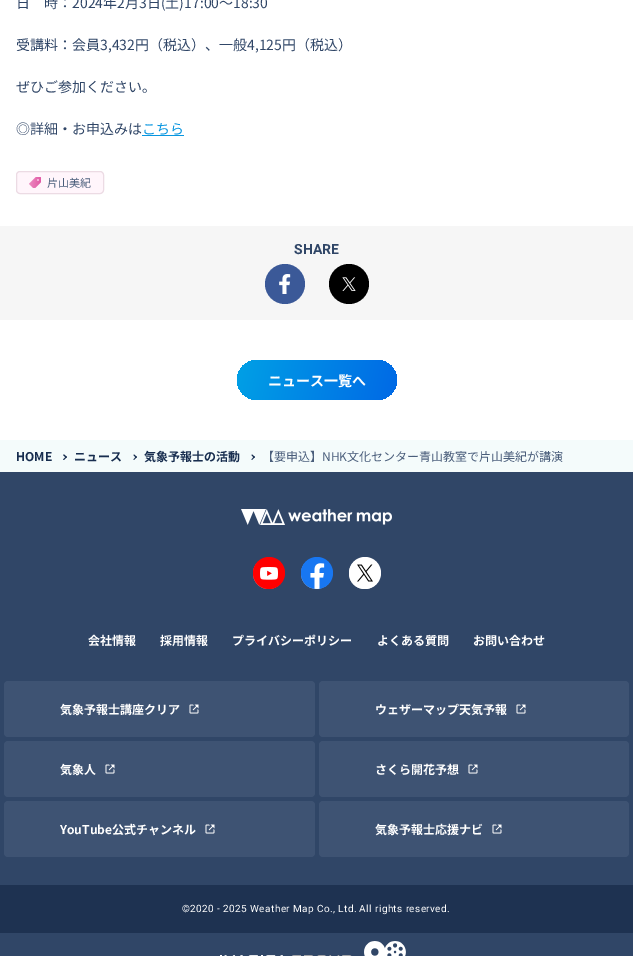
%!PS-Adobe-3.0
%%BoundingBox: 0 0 633 956
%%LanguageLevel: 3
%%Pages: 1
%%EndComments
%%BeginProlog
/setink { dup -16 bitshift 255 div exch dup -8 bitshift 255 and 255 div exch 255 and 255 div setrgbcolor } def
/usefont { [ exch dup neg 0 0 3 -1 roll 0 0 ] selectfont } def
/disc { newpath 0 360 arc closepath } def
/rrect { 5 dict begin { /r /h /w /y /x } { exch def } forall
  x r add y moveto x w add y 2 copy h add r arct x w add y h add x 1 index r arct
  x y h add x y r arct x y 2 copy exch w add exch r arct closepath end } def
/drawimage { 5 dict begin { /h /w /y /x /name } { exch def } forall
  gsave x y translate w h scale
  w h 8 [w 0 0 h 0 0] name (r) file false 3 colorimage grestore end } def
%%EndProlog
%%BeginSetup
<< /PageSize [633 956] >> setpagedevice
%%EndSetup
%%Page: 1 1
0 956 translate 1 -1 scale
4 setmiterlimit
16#FFFFFF setink
0 0 633 956 rectfill
/NotoSansJP-Regular 14 usefont
16#304667 setink
[
    [(日　時：2024年2月3日\(土\)17:00～18:30) 16 8]
    [(受講料：会員3,432円（税込）、一般4,125円（税込）) 16 50]
    [(ぜひご参加ください。) 16 92]
    [(◎詳細・お申込みは) 16 134]
] { aload pop moveto show } forall
16#0896E0 setink
142 134 moveto (こちら) show
142 135 42 1 rectfill
16#FFF5FB setink
16.5 171.5 87 22 3.5 rrect gsave fill grestore
16#ECDBE4 setink
stroke
(img1.raw) 29 177 12 11 drawimage
/NotoSansJP-Regular 11 usefont
16#4A5E7B setink
47 187 moveto (片山美紀) show
16#F6F6F6 setink
0 226 633 94 rectfill
/Roboto-Bold 14 usefont
16#304667 setink
294 254 moveto (SHARE) show
16#3B5998 setink
285 284 20 disc fill
(img2.raw) 279 274 12 20 drawimage
16#000000 setink
349 284 20 disc fill
(img3.raw) 342 277 14 14 drawimage
gsave 237 360 160 40 20 rrect clip newpath
<< /ShadingType 2 /ColorSpace /DeviceRGB /Coords [237 361 397 399] /Extend [true true] /Function << /FunctionType 2 /Domain [0 1] /C0 [0 0.627 0.898] /C1 [0 0.412 0.898] /N 1 >> >> shfill grestore
/NotoSansJP-Bold 14 usefont
16#FFFFFF setink
268 386 moveto (ニュース一覧へ) show
16#F4FBFB setink
0 440 633 32 rectfill
/NotoSansJP-Bold 12 usefont
16#172D4F setink
16 461 moveto (HOME) show
64 454.5 moveto 67 457 lineto 66 458 lineto 63 455 lineto closepath fill
66 456.5 moveto 67 457 lineto 64 460 lineto 63 459.5 lineto closepath fill
74 461 moveto (ニュース) show
134 454.5 moveto 137 457 lineto 136 458 lineto 133.5 455 lineto closepath fill
136 456.5 moveto 137 457 lineto 134 460 lineto 133.5 459.5 lineto closepath fill
144 461 moveto (気象予報士の活動) show
252 454.5 moveto 255 457 lineto 254 458 lineto 251.5 455 lineto closepath fill
254 456.5 moveto 255 457 lineto 252 460 lineto 251.5 459.5 lineto closepath fill
/NotoSansJP-Regular 12 usefont
16#4A5E7B setink
262 461 moveto (【要申込】NHK文化センター青山教室で片山美紀が講演) show
16#304667 setink
0 472 633 484 rectfill
(img4.raw) 241 509 151 16 drawimage
16#FF6666 setink
268.5 573.5 15.5 disc fill
16#FF0000 setink
269 573 16 disc fill
(img5.raw) 260 567 18 13 drawimage
16#79B0F7 setink
316.5 573.5 15.5 disc fill
16#1877F2 setink
317 573 16 disc fill
(img6.raw) 310 563 15 26 drawimage
16#E6E6E6 setink
364.5 573.5 15.5 disc fill
16#FFFFFF setink
365 573 16 disc fill
(img7.raw) 357 564 16 18 drawimage
/NotoSansJP-Bold 12 usefont
[
    [(会社情報) 88 645]
    [(採用情報) 160 645]
    [(プライバシーポリシー) 232 645]
    [(よくある質問) 377 645]
    [(お問い合わせ) 473 645]
] { aload pop moveto show } forall
16#3E5373 setink
4 681 311 56 4 rrect fill
(img8.raw) 189 704 10 10 drawimage
16#FFFFFF setink
60 714 moveto (気象予報士講座クリア) show
16#3E5373 setink
319 681 310 56 4 rrect fill
(img8.raw) 516 704 10 10 drawimage
16#FFFFFF setink
375 714 moveto (ウェザーマップ天気予報) show
16#3E5373 setink
4 741 311 56 4 rrect fill
(img8.raw) 105 764 10 10 drawimage
16#FFFFFF setink
60 774 moveto (気象人) show
16#3E5373 setink
319 741 310 56 4 rrect fill
(img8.raw) 468 764 10 10 drawimage
16#FFFFFF setink
375 774 moveto (さくら開花予想) show
16#3E5373 setink
4 801 311 56 4 rrect fill
(img8.raw) 205 824 10 10 drawimage
16#FFFFFF setink
60 834 moveto (YouTube公式チャンネル) show
16#3E5373 setink
319 801 310 56 4 rrect fill
(img8.raw) 492 824 10 10 drawimage
16#FFFFFF setink
375 834 moveto (気象予報士応援ナビ) show
16#1E3251 setink
0 885 633 48 rectfill
/Roboto-Regular 10 usefont
16#FFFFFF setink
182 912 moveto 0.4 0 (©2020 - 2025 Weather Map Co., Ltd. All rights reserved.) ashow
(img9.raw) 220 955 132 1 drawimage
(img10.raw) 364 941 42 15 drawimage
showpage
%%EOF
